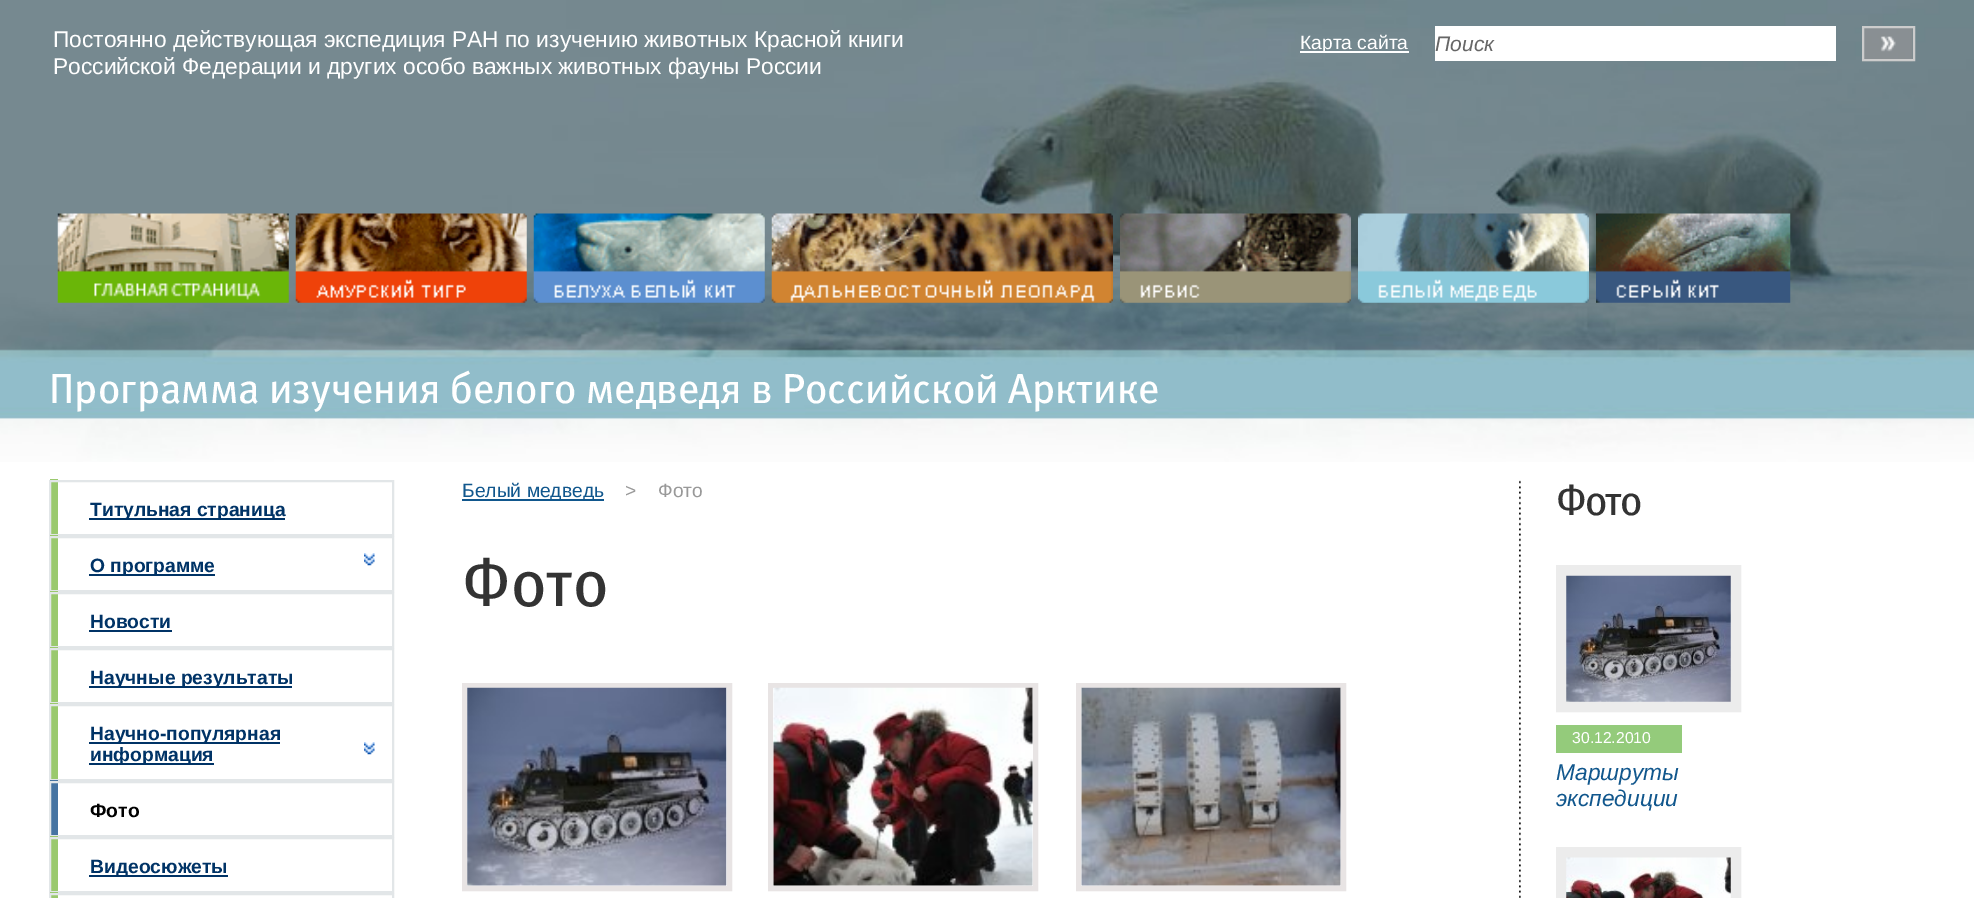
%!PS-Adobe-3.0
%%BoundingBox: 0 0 1974 898
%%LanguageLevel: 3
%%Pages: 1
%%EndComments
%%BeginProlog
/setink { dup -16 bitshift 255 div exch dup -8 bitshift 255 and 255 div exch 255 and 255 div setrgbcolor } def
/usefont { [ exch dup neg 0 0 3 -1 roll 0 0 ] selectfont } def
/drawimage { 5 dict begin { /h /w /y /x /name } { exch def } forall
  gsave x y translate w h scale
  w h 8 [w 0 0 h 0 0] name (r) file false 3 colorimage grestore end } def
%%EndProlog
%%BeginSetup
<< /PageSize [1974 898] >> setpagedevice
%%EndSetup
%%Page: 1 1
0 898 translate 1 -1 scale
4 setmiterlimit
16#FFFFFF setink
0 0 1974 898 rectfill
(img1.raw) 0 0 1974 462 drawimage
/LiberationSans-Regular 22.75 usefont
53 47 moveto (Постоянно действующая экспедиция РАН по изучению животных Красной книги) show
53 74 moveto (Российской Федерации и других особо важных животных фауны России) show
1300 51 109 2 rectfill
/LiberationSans-Regular 19.25 usefont
1300 49 moveto (Карта сайта) show
1435 26 401 35 rectfill
/LiberationSans-Italic 21 usefont
16#666666 setink
1435 51 moveto (Поиск) show
(img2.raw) 1862 28 51 34 drawimage
16#CCCCCC setink
2 setlinewidth
1863 27 51 33 rectstroke
(img3.raw) 57 213 232 90 drawimage
(img4.raw) 295 213 232 90 drawimage
(img5.raw) 533 213 232 90 drawimage
(img6.raw) 771 213 342 90 drawimage
(img7.raw) 1120 213 231 90 drawimage
(img8.raw) 1358 213 231 90 drawimage
(img9.raw) 1596 213 195 90 drawimage
/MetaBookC-Regular 42 usefont
16#FFFFFF setink
49 403 moveto (Программа изучения белого медведя в Российской Арктике) show
16#9AC96E setink
50 479 8 57 rectfill
16#E2E6E8 setink
50 481 343 54 rectstroke
16#003366 setink
89 518 196 2 rectfill
/LiberationSans-Bold 19.25 usefont
90 516 moveto (Титульная страница) show
16#9AC96E setink
50 535 8 57 rectfill
16#E2E6E8 setink
50 537 343 54 rectstroke
16#003366 setink
89 574 126 2 rectfill
90 572 moveto (О программе) show
(img10.raw) 364 553 11 13 drawimage
16#9AC96E setink
50 591 8 57 rectfill
16#E2E6E8 setink
50 593 343 54 rectstroke
16#003366 setink
90 628 moveto (Новости) show
89 630 83 2 rectfill
16#9AC96E setink
50 647 8 57 rectfill
16#E2E6E8 setink
50 649 343 54 rectstroke
16#003366 setink
89 686 203 2 rectfill
90 684 moveto (Научные результаты) show
16#9AC96E setink
50 703 8 78 rectfill
16#E2E6E8 setink
50 705 343 75 rectstroke
16#003366 setink
89 742 191 2 rectfill
90 740 moveto (Научно-популярная) show
89 763 125 2 rectfill
90 761 moveto (информация) show
(img10.raw) 364 742 11 13 drawimage
16#4674A2 setink
50 780 8 57 rectfill
16#E2E6E8 setink
50 782 343 54 rectstroke
16#000000 setink
90 817 moveto (Фото) show
16#9AC96E setink
50 836 8 57 rectfill
16#E2E6E8 setink
50 838 343 54 rectstroke
16#003366 setink
89 875 139 2 rectfill
90 873 moveto (Видеосюжеты) show
16#9AC96E setink
50 892 8 6 rectfill
16#E2E6E8 setink
50 894 343 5 rectstroke
(img11.raw) 1519 480 2 418 drawimage
16#11578D setink
462 499 142 2 rectfill
/LiberationSans-Regular 19.25 usefont
462 497 moveto (Белый медведь) show
16#999999 setink
625 497 moveto (>) show
658 497 moveto (Фото) show
/MetaBookC-Regular 66.5 usefont
16#333333 setink
462 606 moveto (Фото) show
16#E8E4E4 setink
5 setlinewidth
464.5 685.5 265 203 rectstroke
(img12.raw) 467 687 260 199 drawimage
770.5 685.5 265 203 rectstroke
(img13.raw) 773 687 260 199 drawimage
1078.5 685.5 265 203 rectstroke
(img14.raw) 1081 687 260 199 drawimage
/MetaBookC-Regular 42 usefont
16#333333 setink
1556 515 moveto -2 0 (Фото) ashow
16#ECECEC setink
11 setlinewidth
1561.5 570.5 174 136 rectstroke
(img15.raw) 1566 575 165 127 drawimage
16#94CB7B setink
1556 725 126 28 rectfill
/LiberationSans-Regular 15.75 usefont
16#FFFFFF setink
1572 743 moveto (30.12.2010) show
/LiberationSans-Italic 22.75 usefont
16#11578D setink
1556 780 moveto (Маршруты) show
1556 806 moveto (экспедиции) show
16#ECECEC setink
1561.5 852.5 174 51 rectstroke
(img16.raw) 1566 857 165 41 drawimage
showpage
%%EOF
